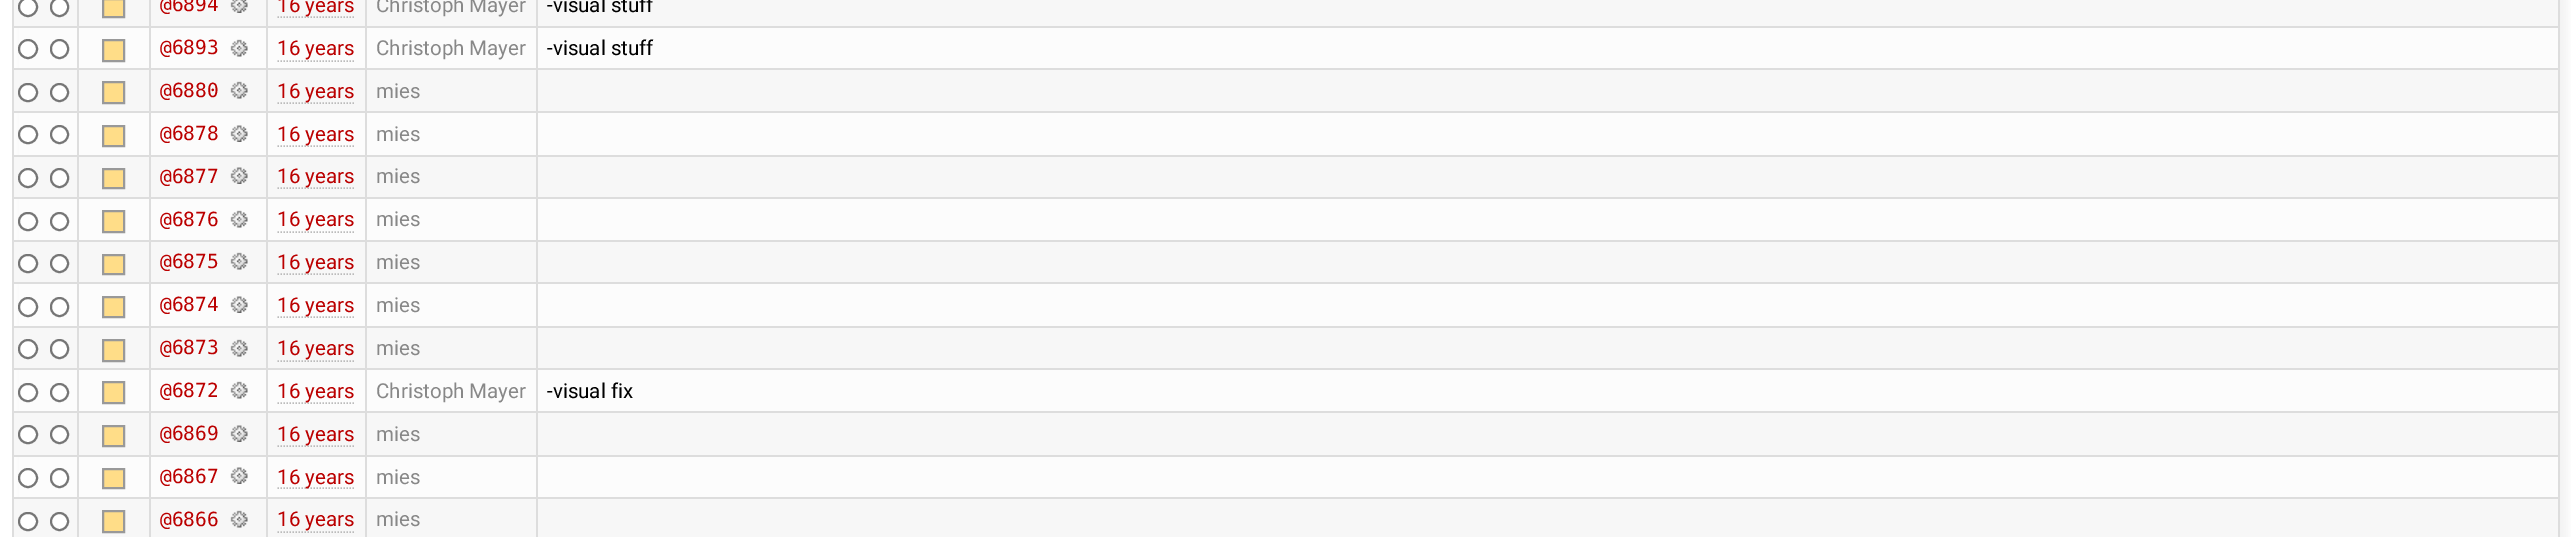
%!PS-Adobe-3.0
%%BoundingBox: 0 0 2571 537
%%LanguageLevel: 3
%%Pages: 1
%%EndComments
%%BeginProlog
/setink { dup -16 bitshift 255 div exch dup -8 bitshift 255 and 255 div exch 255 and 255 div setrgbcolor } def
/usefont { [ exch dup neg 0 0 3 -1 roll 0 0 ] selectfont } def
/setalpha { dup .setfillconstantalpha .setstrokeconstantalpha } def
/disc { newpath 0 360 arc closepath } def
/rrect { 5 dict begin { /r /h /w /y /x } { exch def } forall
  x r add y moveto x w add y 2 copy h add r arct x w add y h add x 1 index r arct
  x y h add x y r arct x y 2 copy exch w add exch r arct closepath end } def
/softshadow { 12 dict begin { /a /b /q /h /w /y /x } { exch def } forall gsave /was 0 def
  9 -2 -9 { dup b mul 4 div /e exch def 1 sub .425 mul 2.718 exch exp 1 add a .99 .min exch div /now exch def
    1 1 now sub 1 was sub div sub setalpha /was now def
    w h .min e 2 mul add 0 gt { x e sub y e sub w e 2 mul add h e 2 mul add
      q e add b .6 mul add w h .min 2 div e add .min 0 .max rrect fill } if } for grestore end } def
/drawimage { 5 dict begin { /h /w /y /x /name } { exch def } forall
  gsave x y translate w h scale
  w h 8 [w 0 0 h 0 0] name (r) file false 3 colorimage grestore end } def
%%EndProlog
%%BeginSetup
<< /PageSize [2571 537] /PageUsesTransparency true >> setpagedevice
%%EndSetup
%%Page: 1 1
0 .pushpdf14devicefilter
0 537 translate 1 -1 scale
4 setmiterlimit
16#FFFFFF setink
0 0 2571 537 rectfill
16#F2F2F2 setink
20 -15 2547 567 0 5 1 softshadow
16#F7F7F7 setink
14 0 2544 26 rectfill
16#FFFFFF setink
28 7 9 disc gsave fill grestore
16#767676 setink
2 setlinewidth
stroke
16#FFFFFF setink
51 -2 17 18 8.5 rrect gsave fill grestore
16#767676 setink
stroke
16#FFDD88 setink
103 -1 moveto 124 -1 lineto 124 17 lineto 103 17 lineto closepath gsave fill grestore
16#999999 setink
stroke
/DejaVuSansMono-Regular 19.5 usefont
16#BB0000 setink
160 11 moveto (@6894) show
(img1.raw) 230 0 18 13 drawimage
16#BBBBBB setink
1.5 setlinewidth
[1.5 1.5] 0 setdash
277.5 17 moveto 354 17 lineto stroke
/Roboto-Regular 20.5 usefont
16#BB0000 setink
277 12 moveto (16 years) show
16#888888 setink
376 12 moveto (Christoph Mayer) show
16#000000 setink
547 12 moveto (-visual stuff) show
16#FCFCFC setink
19 28 2539 40 rectfill
16#DDDDDD setink
12 26 2547 2 rectfill
16#FFFFFF setink
28 49 9 disc gsave fill grestore
16#767676 setink
2 setlinewidth
[] 0 setdash
stroke
16#FFFFFF setink
51 40 17 18 8.5 rrect gsave fill grestore
16#767676 setink
stroke
16#FFDD88 setink
103 40 moveto 124 40 lineto 124 61 lineto 103 61 lineto closepath gsave fill grestore
16#999999 setink
stroke
/DejaVuSansMono-Regular 19.5 usefont
16#BB0000 setink
160 54 moveto (@6893) show
(img2.raw) 230 39 18 18 drawimage
/Roboto-Regular 20.5 usefont
277 55 moveto (16 years) show
16#BBBBBB setink
1.5 setlinewidth
[1.5 1.5] 0 setdash
277.5 61 moveto 354 61 lineto stroke
16#888888 setink
376 55 moveto (Christoph Mayer) show
16#000000 setink
547 55 moveto (-visual stuff) show
16#F7F7F7 setink
14 70 2544 41 rectfill
16#DDDDDD setink
12 68 2547 2 rectfill
16#FFFFFF setink
19 84 18 17 8.5 rrect gsave fill grestore
16#767676 setink
2 setlinewidth
[] 0 setdash
stroke
16#FFFFFF setink
59.5 92.5 8.5 disc gsave fill grestore
16#767676 setink
stroke
16#FFDD88 setink
103 82 moveto 124 82 lineto 124 103 lineto 103 103 lineto closepath gsave fill grestore
16#999999 setink
stroke
/DejaVuSansMono-Regular 19.5 usefont
16#BB0000 setink
160 97 moveto (@6880) show
(img3.raw) 230 81 18 18 drawimage
16#BBBBBB setink
1.5 setlinewidth
[1.5 1.5] 0 setdash
277.5 103 moveto 354 103 lineto stroke
/Roboto-Regular 20.5 usefont
16#BB0000 setink
277 98 moveto (16 years) show
16#888888 setink
376 98 moveto (mies) show
16#FCFCFC setink
19 113 2539 42 rectfill
16#DDDDDD setink
12 111 2547 2 rectfill
16#FFFFFF setink
19 126 18 17 8.5 rrect gsave fill grestore
16#767676 setink
2 setlinewidth
[] 0 setdash
stroke
16#FFFFFF setink
59.5 134.5 8.5 disc gsave fill grestore
16#767676 setink
stroke
16#FFDD88 setink
103 126 moveto 124 126 lineto 124 146 lineto 103 146 lineto closepath gsave fill grestore
16#999999 setink
stroke
/DejaVuSansMono-Regular 19.5 usefont
16#BB0000 setink
160 140 moveto (@6878) show
(img4.raw) 230 125 18 17 drawimage
16#BBBBBB setink
1.5 setlinewidth
[1.5 1.5] 0 setdash
277.5 146 moveto 354 146 lineto stroke
/Roboto-Regular 20.5 usefont
16#BB0000 setink
277 141 moveto (16 years) show
16#888888 setink
376 141 moveto (mies) show
16#F7F7F7 setink
14 157 2544 40 rectfill
16#DDDDDD setink
12 155 2547 2 rectfill
16#FFFFFF setink
28 178 9 disc gsave fill grestore
16#767676 setink
2 setlinewidth
[] 0 setdash
stroke
16#FFFFFF setink
51 169 17 18 8.5 rrect gsave fill grestore
16#767676 setink
stroke
16#FFDD88 setink
103 169 moveto 124 169 lineto 124 188 lineto 103 188 lineto closepath gsave fill grestore
16#999999 setink
stroke
/DejaVuSansMono-Regular 19.5 usefont
16#BB0000 setink
160 183 moveto (@6877) show
(img5.raw) 230 167 18 17 drawimage
16#BBBBBB setink
1.5 setlinewidth
[1.5 1.5] 0 setdash
277.5 188 moveto 354 188 lineto stroke
/Roboto-Regular 20.5 usefont
16#BB0000 setink
277 183 moveto (16 years) show
16#888888 setink
376 183 moveto (mies) show
16#FCFCFC setink
19 199 2539 41 rectfill
16#DDDDDD setink
12 197 2547 2 rectfill
16#FFFFFF setink
19 213 18 17 8.5 rrect gsave fill grestore
16#767676 setink
2 setlinewidth
[] 0 setdash
stroke
16#FFFFFF setink
59.5 221.5 8.5 disc gsave fill grestore
16#767676 setink
stroke
16#FFDD88 setink
103 211 moveto 124 211 lineto 124 232 lineto 103 232 lineto closepath gsave fill grestore
16#999999 setink
stroke
/DejaVuSansMono-Regular 19.5 usefont
16#BB0000 setink
160 226 moveto (@6876) show
(img2.raw) 230 210 18 18 drawimage
/Roboto-Regular 20.5 usefont
277 226 moveto (16 years) show
16#BBBBBB setink
1.5 setlinewidth
[1.5 1.5] 0 setdash
277.5 232 moveto 354 232 lineto stroke
16#888888 setink
376 226 moveto (mies) show
16#F7F7F7 setink
14 242 2544 40 rectfill
16#DDDDDD setink
12 240 2547 2 rectfill
16#FFFFFF setink
19 255 18 17 8.5 rrect gsave fill grestore
16#767676 setink
2 setlinewidth
[] 0 setdash
stroke
16#FFFFFF setink
59.5 263.5 8.5 disc gsave fill grestore
16#767676 setink
stroke
16#FFDD88 setink
103 255 moveto 124 255 lineto 124 274 lineto 103 274 lineto closepath gsave fill grestore
16#999999 setink
stroke
/DejaVuSansMono-Regular 19.5 usefont
16#BB0000 setink
160 268 moveto (@6875) show
(img3.raw) 230 252 18 18 drawimage
16#BBBBBB setink
1.5 setlinewidth
[1.5 1.5] 0 setdash
277.5 274 moveto 354 274 lineto stroke
/Roboto-Regular 20.5 usefont
16#BB0000 setink
277 269 moveto (16 years) show
16#888888 setink
376 269 moveto (mies) show
16#FCFCFC setink
19 284 2539 42 rectfill
16#DDDDDD setink
12 282 2547 2 rectfill
16#FFFFFF setink
28 307 9 disc gsave fill grestore
16#767676 setink
2 setlinewidth
[] 0 setdash
stroke
16#FFFFFF setink
51 298 17 18 8.5 rrect gsave fill grestore
16#767676 setink
stroke
16#FFDD88 setink
103 297 moveto 124 297 lineto 124 317 lineto 103 317 lineto closepath gsave fill grestore
16#999999 setink
stroke
/DejaVuSansMono-Regular 19.5 usefont
16#BB0000 setink
160 311 moveto (@6874) show
(img4.raw) 230 296 18 17 drawimage
16#BBBBBB setink
1.5 setlinewidth
[1.5 1.5] 0 setdash
277.5 317 moveto 354 317 lineto stroke
/Roboto-Regular 20.5 usefont
16#BB0000 setink
277 312 moveto (16 years) show
16#888888 setink
376 312 moveto (mies) show
16#F7F7F7 setink
14 328 2544 40 rectfill
16#DDDDDD setink
12 326 2547 2 rectfill
16#FFFFFF setink
28 349 9 disc gsave fill grestore
16#767676 setink
2 setlinewidth
[] 0 setdash
stroke
16#FFFFFF setink
51 340 17 18 8.5 rrect gsave fill grestore
16#767676 setink
stroke
16#FFDD88 setink
103 340 moveto 124 340 lineto 124 361 lineto 103 361 lineto closepath gsave fill grestore
16#999999 setink
stroke
/DejaVuSansMono-Regular 19.5 usefont
16#BB0000 setink
160 354 moveto (@6873) show
(img3.raw) 230 339 18 18 drawimage
/Roboto-Regular 20.5 usefont
277 355 moveto (16 years) show
16#BBBBBB setink
1.5 setlinewidth
[1.5 1.5] 0 setdash
277.5 361 moveto 354 361 lineto stroke
16#888888 setink
376 355 moveto (mies) show
16#FCFCFC setink
19 370 2539 41 rectfill
16#DDDDDD setink
12 368 2547 2 rectfill
16#FFFFFF setink
19 384 18 17 8.5 rrect gsave fill grestore
16#767676 setink
2 setlinewidth
[] 0 setdash
stroke
16#FFFFFF setink
59.5 392.5 8.5 disc gsave fill grestore
16#767676 setink
stroke
16#FFDD88 setink
103 382 moveto 124 382 lineto 124 403 lineto 103 403 lineto closepath gsave fill grestore
16#999999 setink
stroke
/DejaVuSansMono-Regular 19.5 usefont
16#BB0000 setink
160 397 moveto (@6872) show
(img2.raw) 230 381 18 18 drawimage
16#BBBBBB setink
1.5 setlinewidth
[1.5 1.5] 0 setdash
277.5 403 moveto 354 403 lineto stroke
/Roboto-Regular 20.5 usefont
16#BB0000 setink
277 398 moveto (16 years) show
16#888888 setink
376 398 moveto (Christoph Mayer) show
16#000000 setink
547 398 moveto (-visual fix) show
16#F7F7F7 setink
14 413 2544 42 rectfill
16#DDDDDD setink
12 411 2547 2 rectfill
16#FFFFFF setink
19 426 18 17 8.5 rrect gsave fill grestore
16#767676 setink
2 setlinewidth
[] 0 setdash
stroke
16#FFFFFF setink
59.5 434.5 8.5 disc gsave fill grestore
16#767676 setink
stroke
16#FFDD88 setink
103 426 moveto 124 426 lineto 124 446 lineto 103 446 lineto closepath gsave fill grestore
16#999999 setink
stroke
/DejaVuSansMono-Regular 19.5 usefont
16#BB0000 setink
160 440 moveto (@6869) show
(img5.raw) 230 425 18 17 drawimage
16#BBBBBB setink
1.5 setlinewidth
[1.5 1.5] 0 setdash
277.5 446 moveto 354 446 lineto stroke
/Roboto-Regular 20.5 usefont
16#BB0000 setink
277 441 moveto (16 years) show
16#888888 setink
376 441 moveto (mies) show
16#FCFCFC setink
19 457 2539 40 rectfill
16#DDDDDD setink
12 455 2547 2 rectfill
16#FFFFFF setink
28 478 9 disc gsave fill grestore
16#767676 setink
2 setlinewidth
[] 0 setdash
stroke
16#FFFFFF setink
51 469 17 18 8.5 rrect gsave fill grestore
16#767676 setink
stroke
16#FFDD88 setink
103 469 moveto 124 469 lineto 124 488 lineto 103 488 lineto closepath gsave fill grestore
16#999999 setink
stroke
/DejaVuSansMono-Regular 19.5 usefont
16#BB0000 setink
160 483 moveto (@6867) show
(img4.raw) 230 467 18 17 drawimage
16#BBBBBB setink
1.5 setlinewidth
[1.5 1.5] 0 setdash
277.5 488 moveto 354 488 lineto stroke
/Roboto-Regular 20.5 usefont
16#BB0000 setink
277 484 moveto (16 years) show
16#888888 setink
376 484 moveto (mies) show
[
    [14 499 2544 38 16#F7F7F7]
    [12 497 2547 2 16#DDDDDD]
    [12 0 2 537 16#DDDDDD]
] { aload pop setink rectfill } forall
16#FFFFFF setink
19 513 18 17 8.5 rrect gsave fill grestore
16#767676 setink
2 setlinewidth
[] 0 setdash
stroke
16#FFFFFF setink
59.5 521.5 8.5 disc gsave fill grestore
16#767676 setink
stroke
16#DDDDDD setink
77 0 2 537 rectfill
16#FFDD88 setink
103 511 moveto 124 511 lineto 124 532 lineto 103 532 lineto closepath gsave fill grestore
16#999999 setink
stroke
16#DDDDDD setink
149 0 2 537 rectfill
/DejaVuSansMono-Regular 19.5 usefont
16#BB0000 setink
160 526 moveto (@6866) show
(img3.raw) 230 510 18 18 drawimage
16#DDDDDD setink
266 0 2 537 rectfill
/Roboto-Regular 20.5 usefont
16#BB0000 setink
277 526 moveto (16 years) show
16#BBBBBB setink
1.5 setlinewidth
[1.5 1.5] 0 setdash
277.5 532 moveto 354 532 lineto stroke
16#DDDDDD setink
365 0 2 537 rectfill
16#888888 setink
376 526 moveto (mies) show
16#DDDDDD setink
2558 0 2 537 rectfill
536 0 2 537 rectfill
.poppdf14devicefilter showpage
%%EOF
